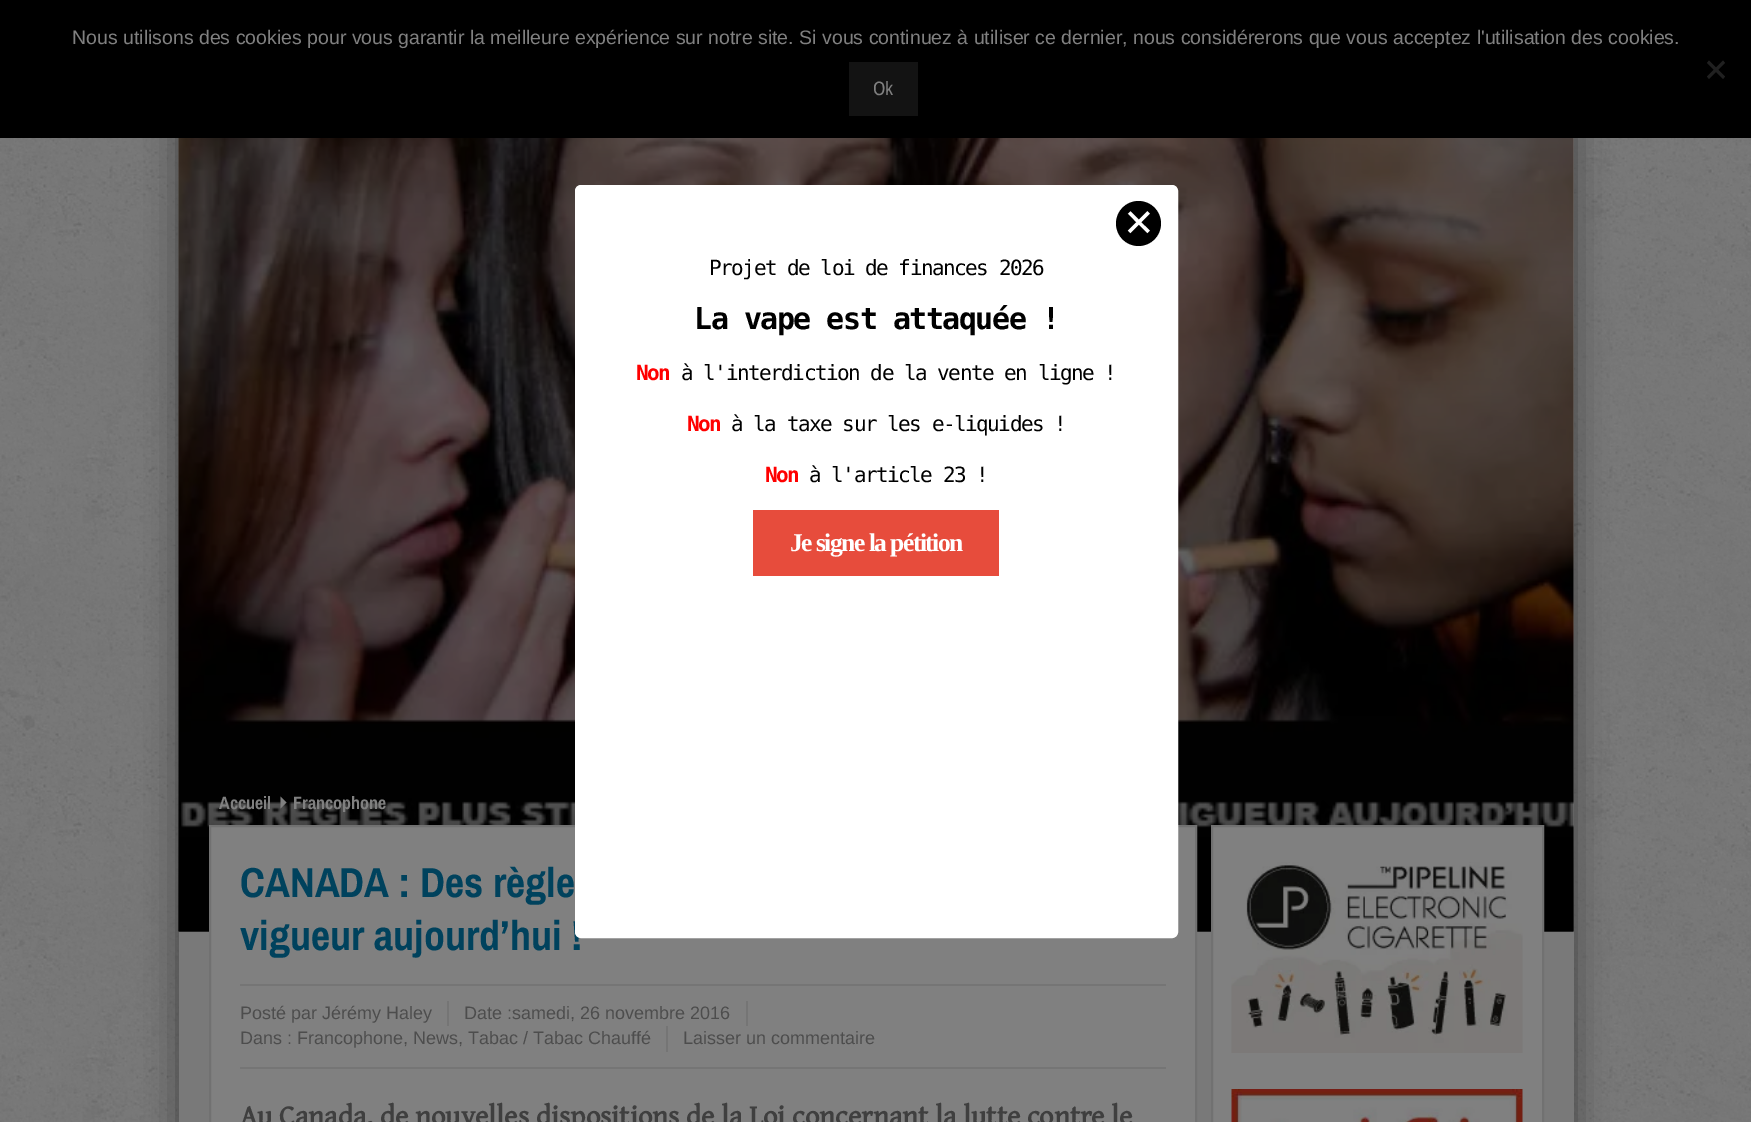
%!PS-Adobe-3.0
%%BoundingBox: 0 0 1751 1122
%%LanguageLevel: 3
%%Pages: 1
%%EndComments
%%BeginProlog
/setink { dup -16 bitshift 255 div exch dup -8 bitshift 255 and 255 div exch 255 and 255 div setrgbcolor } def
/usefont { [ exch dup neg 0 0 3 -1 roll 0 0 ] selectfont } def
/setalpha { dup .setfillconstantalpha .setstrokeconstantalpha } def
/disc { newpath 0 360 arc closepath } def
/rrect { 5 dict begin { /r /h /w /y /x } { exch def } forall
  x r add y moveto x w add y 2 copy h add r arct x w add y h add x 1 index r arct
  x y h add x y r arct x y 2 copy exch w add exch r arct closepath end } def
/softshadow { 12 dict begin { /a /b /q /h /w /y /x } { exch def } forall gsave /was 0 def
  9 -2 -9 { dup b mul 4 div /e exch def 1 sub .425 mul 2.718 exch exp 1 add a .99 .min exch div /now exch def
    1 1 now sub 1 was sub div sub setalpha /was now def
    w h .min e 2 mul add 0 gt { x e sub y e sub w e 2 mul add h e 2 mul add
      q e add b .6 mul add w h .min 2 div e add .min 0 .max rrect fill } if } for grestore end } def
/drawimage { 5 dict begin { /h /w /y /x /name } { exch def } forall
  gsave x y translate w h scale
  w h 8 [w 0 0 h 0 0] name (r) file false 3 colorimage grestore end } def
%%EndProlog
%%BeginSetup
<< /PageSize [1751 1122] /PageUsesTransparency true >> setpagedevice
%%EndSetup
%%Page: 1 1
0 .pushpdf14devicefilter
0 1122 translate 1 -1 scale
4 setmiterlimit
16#FFFFFF setink
0 0 1751 1122 rectfill
(img1.raw) 0 138 1751 984 drawimage
16#000000 setink
179 -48 1395 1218 0 16 0.44 softshadow
0 0 1751 138 rectfill
/LiberationSans-Regular 19.5 usefont
16#808080 setink
72 44 moveto (Nous utilisons des cookies pour vous garantir la meilleure expérience sur notre site. Si vous continuez à utiliser ce dernier, nous considérerons que vous acceptez l'utilisation des cookies.) show
16#202020 setink
1723 60.5 moveto 1725 63 lineto 1709 79 lineto 1707 76.5 lineto closepath fill
1707 63 moveto 1709 60.5 lineto 1725 76.5 lineto 1723 79 lineto closepath fill
16#131313 setink
849 62 69 54 rectfill
/ArchivoNarrow-Regular 19.5 usefont
16#808080 setink
873 95 moveto (Ok) show
16#797979 setink
179 138 1395 984 rectfill
(img2.raw) 178 138 1396 794 drawimage
(img3.raw) 178 138 1396 794 drawimage
16#808080 setink
210 826 moveto 1196 826 lineto 1196 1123 lineto 210 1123 lineto closepath gsave fill grestore
16#717171 setink
2 setlinewidth
stroke
/ArchivoNarrow-Bold 42 usefont
16#00425D setink
240 950 moveto (vigueur aujourd’hui !) show
16#FFFFFF setink
576 186 601 751 5 rrect gsave fill grestore
stroke
16#000000 setink
1138.5 223.5 22.5 disc fill
/DejaVuSans-Regular 38 usefont
16#FFFFFF setink
1123 236 moveto (✕) show
/DejaVuSansMono-Regular 21 usefont
16#000000 setink
709 275 moveto -1.5 0 (Projet de loi de finances 2026) ashow
/DejaVuSansMono-Bold 30 usefont
694 329 moveto -1.5 0 (La vape est attaquée !) ashow
/DejaVuSansMono-Bold 21 usefont
16#FF0000 setink
636 380 moveto -1.5 0 (Non) ashow
/DejaVuSansMono-Regular 21 usefont
16#000000 setink
681 380 moveto -1.5 0 (à l'interdiction de la vente en ligne !) ashow
/DejaVuSansMono-Bold 21 usefont
16#FF0000 setink
687 431 moveto -1.5 0 (Non) ashow
/DejaVuSansMono-Regular 21 usefont
16#000000 setink
731 431 moveto -1.5 0 (à la taxe sur les e-liquides !) ashow
/DejaVuSansMono-Bold 21 usefont
16#FF0000 setink
765 482 moveto -1.5 0 (Non) ashow
/DejaVuSansMono-Regular 21 usefont
16#000000 setink
809 482 moveto -1.5 0 (à l'article 23 !) ashow
16#E74C3C setink
753 510 246 66 rectfill
/LiberationSerif-Bold 25.5 usefont
16#FFFFFF setink
790 551 moveto -1.5 0 (Je signe la pétition) ashow
/ArchivoNarrow-Bold 18 usefont
16#808080 setink
219 809 moveto (Accueil) show
280.5 808.5 moveto 280.5 796.5 lineto 286.5 802.5 lineto closepath fill
293 809 moveto (Francophone) show
/ArchivoNarrow-Bold 42 usefont
16#00425D setink
240 897 moveto (CANADA : Des règle) show
[
    [240 984 926 2 16#757575]
    [240 1067 926 2 16#757575]
    [447 1001 2 25 16#757575]
] { aload pop setink rectfill } forall
/LiberationSans-Regular 18 usefont
16#4D4D4D setink
240 1019 moveto (Posté par Jérémy Haley) show
16#757575 setink
746 1001 2 25 rectfill
16#4D4D4D setink
464 1019 moveto (Date :samedi, 26 novembre 2016) show
16#757575 setink
666 1026 2 26 rectfill
16#4D4D4D setink
240 1044 moveto (Dans : Francophone, News, Tabac / Tabac Chauffé) show
683 1044 moveto (Laisser un commentaire) show
/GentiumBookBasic-Bold 28.5 usefont
16#3F3F3F setink
240 1125 moveto (Au Canada, de nouvelles dispositions de la Loi concernant la lutte contre le) show
16#808080 setink
1212 826 moveto 1543 826 lineto 1543 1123 lineto 1212 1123 lineto closepath gsave fill grestore
16#717171 setink
stroke
(img4.raw) 1231 862 292 191 drawimage
(img5.raw) 1231 1089 292 33 drawimage
.poppdf14devicefilter showpage
%%EOF
